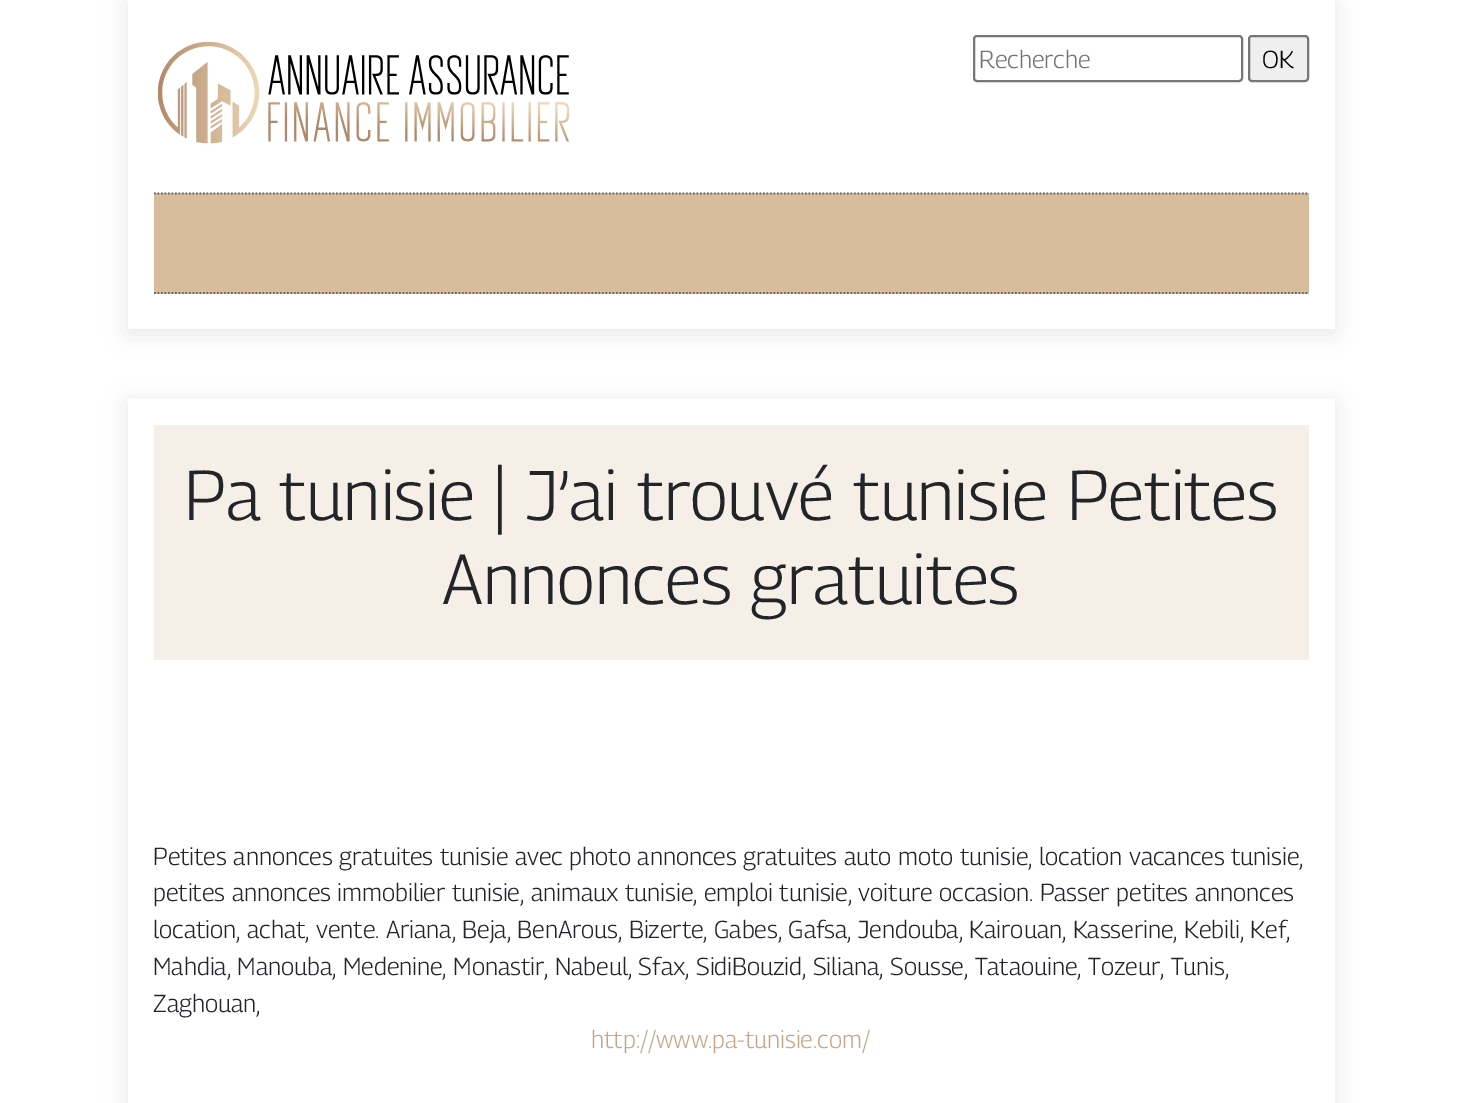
%!PS-Adobe-3.0
%%BoundingBox: 0 0 1461 1103
%%LanguageLevel: 3
%%Pages: 1
%%EndComments
%%BeginProlog
/setink { dup -16 bitshift 255 div exch dup -8 bitshift 255 and 255 div exch 255 and 255 div setrgbcolor } def
/usefont { [ exch dup neg 0 0 3 -1 roll 0 0 ] selectfont } def
/setalpha { dup .setfillconstantalpha .setstrokeconstantalpha } def
/rrect { 5 dict begin { /r /h /w /y /x } { exch def } forall
  x r add y moveto x w add y 2 copy h add r arct x w add y h add x 1 index r arct
  x y h add x y r arct x y 2 copy exch w add exch r arct closepath end } def
/softshadow { 12 dict begin { /a /b /q /h /w /y /x } { exch def } forall gsave /was 0 def
  9 -2 -9 { dup b mul 4 div /e exch def 1 sub .425 mul 2.718 exch exp 1 add a .99 .min exch div /now exch def
    1 1 now sub 1 was sub div sub setalpha /was now def
    w h .min e 2 mul add 0 gt { x e sub y e sub w e 2 mul add h e 2 mul add
      q e add b .6 mul add w h .min 2 div e add .min 0 .max rrect fill } if } for grestore end } def
/drawimage { 5 dict begin { /h /w /y /x /name } { exch def } forall
  gsave x y translate w h scale
  w h 8 [w 0 0 h 0 0] name (r) file false 3 colorimage grestore end } def
%%EndProlog
%%BeginSetup
<< /PageSize [1461 1103] /PageUsesTransparency true >> setpagedevice
%%EndSetup
%%Page: 1 1
0 .pushpdf14devicefilter
0 1103 translate 1 -1 scale
4 setmiterlimit
16#FFFFFF setink
0 0 1461 1103 rectfill
gsave
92 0 moveto 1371 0 lineto 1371 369 lineto 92 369 lineto closepath 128 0 moveto 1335 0 lineto 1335 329 lineto 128 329 lineto closepath eoclip newpath
16#000000 setink
128 4 1207 329 0 11.5 0.1 softshadow
grestore
(img1.raw) 157 42 412 102 drawimage
16#767676 setink
2 setlinewidth
974 36 268 45 3 rrect stroke
/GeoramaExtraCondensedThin-Thin 24.5 usefont
16#757575 setink
979 68 moveto (Recherche) show
16#EFEFEF setink
1249 36 59 45 3 rrect gsave fill grestore
16#767676 setink
stroke
16#000000 setink
1262 68 moveto (OK) show
16#D8BC9C setink
154 193 1155 101 rectfill
16#666666 setink
1.8 setlinewidth
[1.75 1.75] 0 setdash
154 193.5 moveto 1309 193.5 lineto stroke
154 293 moveto 1309 293 lineto stroke
gsave
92 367 moveto 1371 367 lineto 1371 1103 lineto 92 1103 lineto closepath 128 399 moveto 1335 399 lineto 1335 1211 lineto 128 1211 lineto closepath eoclip newpath
16#000000 setink
128 403 1207 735 0 11.5 0.1 softshadow
grestore
16#F6EFE8 setink
154 425 1155 235 rectfill
/GeoramaExtraCondensedThin-Thin 70 usefont
16#212529 setink
184 520 moveto (Pa tunisie | J’ai trouvé tunisie Petites) show
442 604 moveto (Annonces gratuites) show
/GeoramaExtraCondensedThin-Thin 24.5 usefont
[
    [(Petites annonces gratuites tunisie avec photo annonces gratuites auto moto tunisie, location vacances tunisie,) 153 865]
    [(petites annonces immobilier tunisie, animaux tunisie, emploi tunisie, voiture occasion. Passer petites annonces) 153 901]
    [(location, achat, vente. Ariana, Beja, BenArous, Bizerte, Gabes, Gafsa, Jendouba, Kairouan, Kasserine, Kebili, Kef,) 153 938]
    [(Mahdia, Manouba, Medenine, Monastir, Nabeul, Sfax, SidiBouzid, Siliana, Sousse, Tataouine, Tozeur, Tunis,) 153 975]
    [(Zaghouan,) 153 1012]
] { aload pop moveto show } forall
16#C7A687 setink
591 1048 moveto (http://www.pa-tunisie.com/) show
.poppdf14devicefilter showpage
%%EOF
